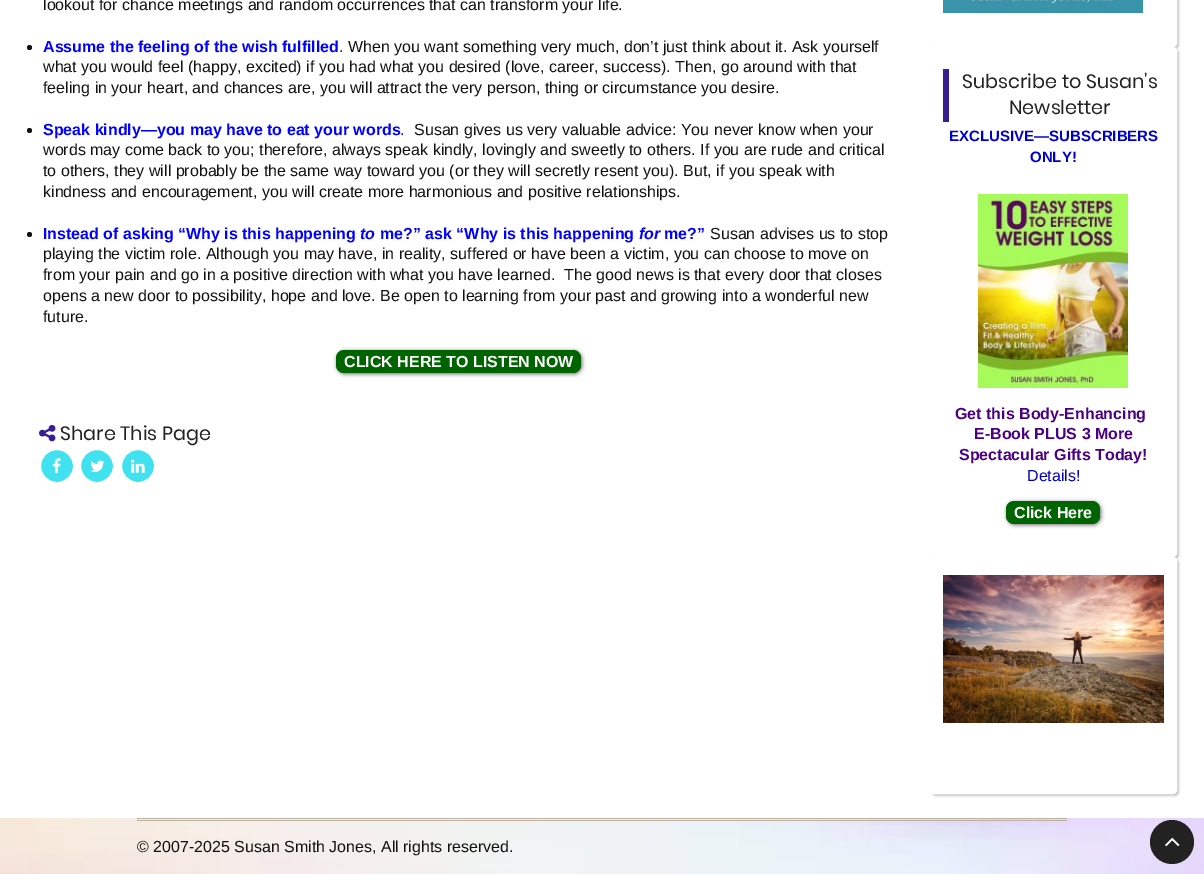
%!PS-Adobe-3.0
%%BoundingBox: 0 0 1204 874
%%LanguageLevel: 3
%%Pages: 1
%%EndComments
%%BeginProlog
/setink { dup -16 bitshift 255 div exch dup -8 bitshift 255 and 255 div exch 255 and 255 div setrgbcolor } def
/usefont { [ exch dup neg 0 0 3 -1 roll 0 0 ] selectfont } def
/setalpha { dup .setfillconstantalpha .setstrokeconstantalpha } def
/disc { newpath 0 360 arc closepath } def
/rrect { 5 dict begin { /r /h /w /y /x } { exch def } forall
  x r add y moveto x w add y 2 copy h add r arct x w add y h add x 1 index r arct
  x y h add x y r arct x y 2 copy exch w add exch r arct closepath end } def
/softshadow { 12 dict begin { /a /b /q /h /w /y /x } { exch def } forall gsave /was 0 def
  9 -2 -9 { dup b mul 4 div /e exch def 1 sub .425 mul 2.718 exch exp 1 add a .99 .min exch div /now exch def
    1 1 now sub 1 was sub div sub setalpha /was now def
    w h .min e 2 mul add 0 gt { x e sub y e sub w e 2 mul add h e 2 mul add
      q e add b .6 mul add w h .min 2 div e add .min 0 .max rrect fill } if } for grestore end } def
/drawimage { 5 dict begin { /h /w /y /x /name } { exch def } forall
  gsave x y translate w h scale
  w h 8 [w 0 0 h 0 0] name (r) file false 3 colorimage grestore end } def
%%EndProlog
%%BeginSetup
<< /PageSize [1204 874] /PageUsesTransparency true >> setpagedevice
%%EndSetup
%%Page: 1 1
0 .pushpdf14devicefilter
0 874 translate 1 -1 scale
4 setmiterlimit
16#FFFFFF setink
0 0 1204 874 rectfill
/LiberationSans-Regular 16 usefont
16#111111 setink
43 10 moveto (lookout for chance meetings and random occurrences that can transform your life.) show
29.5 47.5 2.5 disc fill
/LiberationSans-Bold 16 usefont
16#0000FF setink
43 52 moveto (Assume the feeling of the wish fulfilled) show
/LiberationSans-Regular 16 usefont
16#111111 setink
348 52 moveto (When you want something very much, don’t just think about it. Ask yourself) show
16#0000FF setink
339 52 moveto (.) show
16#111111 setink
43 72 moveto (what you would feel \(happy, excited\) if you had what you desired \(love, career, success\). Then, go around with that) show
43 93 moveto (feeling in your heart, and chances are, you will attract the very person, thing or circumstance you desire.) show
29.5 130.5 2.5 disc fill
/LiberationSans-Bold 16 usefont
16#0000FF setink
43 135 moveto (Speak kindly—you may have to eat your words) show
/LiberationSans-Regular 16 usefont
16#111111 setink
414 135 moveto (Susan gives us very valuable advice: You never know when your) show
16#0000FF setink
400 135 moveto (.) show
16#111111 setink
[
    [(words may come back to you; therefore, always speak kindly, lovingly and sweetly to others. If you are rude and critical) 43 155]
    [(to others, they will probably be the same way toward you \(or they will secretly resent you\). But, if you speak with) 43 176]
    [(kindness and encouragement, you will create more harmonious and positive relationships.) 43 197]
] { aload pop moveto show } forall
29.5 234.5 2.5 disc fill
/LiberationSans-Bold 16 usefont
16#0000FF setink
43 239 moveto (Instead of asking “Why is this happening) show
/LiberationSans-BoldItalic 16 usefont
360 239 moveto (to) show
/LiberationSans-Bold 16 usefont
380 239 moveto (me?” ask “Why is this happening) show
/LiberationSans-BoldItalic 16 usefont
639 239 moveto (for) show
/LiberationSans-Bold 16 usefont
664 239 moveto (me?”) show
/LiberationSans-Regular 16 usefont
16#111111 setink
[
    [(Susan advises us to stop) 710 239]
    [(playing the victim role. Although you may have, in reality, suffered or have been a victim, you can choose to move on) 43 259]
    [(from your pain and go in a positive direction with what you have learned.  The good news is that every door that closes) 43 280]
    [(opens a new door to possibility, hope and love. Be open to learning from your past and growing into a wonderful new) 43 301]
    [(future.) 43 322]
] { aload pop moveto show } forall
16#666666 setink
337 351 245 23 8 2 1 softshadow
16#006400 setink
336 350 245 23 8 rrect fill
/LiberationSans-Bold 16 usefont
16#FFFFFF setink
344 367 moveto (CLICK HERE TO LISTEN NOW) show
(img1.raw) 39 425 17 17 drawimage
/Poppins-Regular 19.25 usefont
16#222222 setink
60 440 moveto (Share This Page) show
16#3FE2EE setink
57 466 17 disc gsave fill grestore
16#FFFFFF setink
2 setlinewidth
stroke
(img2.raw) 52 458 9 16 drawimage
16#3FE2EE setink
97 466 17 disc gsave fill grestore
16#FFFFFF setink
stroke
(img3.raw) 90 460 15 12 drawimage
16#3FE2EE setink
138 466 17 disc gsave fill grestore
16#FFFFFF setink
stroke
(img4.raw) 131 459 14 14 drawimage
16#C6C6C6 setink
932 -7 247 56 4 1 1 softshadow
16#FFFFFF setink
931.5 -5.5 244 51 2.5 rrect gsave fill grestore
3 setlinewidth
stroke
(img5.raw) 943 0 200 13 drawimage
16#C6C6C6 setink
932 49 247 510 4 1 1 softshadow
16#FFFFFF setink
931.5 48.5 244 507 2.5 rrect gsave fill grestore
stroke
16#371E93 setink
943 69 6 53 rectfill
16#222222 setink
962 88 moveto (Subscribe to Susan's) show
1009 114 moveto (Newsletter) show
/LiberationSans-Bold 15 usefont
16#0000CD setink
949 141 moveto (EXCLUSIVE—SUBSCRIBERS) show
1030 162 moveto (ONLY!) show
(img6.raw) 978 194 150 194 drawimage
/LiberationSans-Bold 16 usefont
16#4B0082 setink
[
    [(Get this Body-Enhancing) 955 419]
    [(E-Book PLUS 3 More) 974 439]
    [(Spectacular Gifts Today!) 959 460]
] { aload pop moveto show } forall
/LiberationSans-Regular 16 usefont
16#0000BB setink
1027 481 moveto (Details!) show
16#666666 setink
1007 502 94 23 8 2 1 softshadow
16#006400 setink
1006 501 94 23 8 rrect fill
/LiberationSans-Bold 16 usefont
16#FFFFFF setink
1014 518 moveto (Click Here) show
16#C6C6C6 setink
932 559 247 237 4 1 1 softshadow
16#FFFFFF setink
931.5 558.5 244 234 2.5 rrect gsave fill grestore
stroke
(img7.raw) 943 575 221 148 drawimage
(img8.raw) 0 818 1204 56 drawimage
16#BBB0A1 setink
137 818 930 1 rectfill
137 820 930 1 rectfill
/LiberationSans-Regular 16 usefont
16#111111 setink
137 852 moveto (© 2007-2025 Susan Smith Jones, All rights reserved.) show
16#222222 setink
1172 842 22 disc fill
(img9.raw) 1165 837 15 10 drawimage
.poppdf14devicefilter showpage
%%EOF
